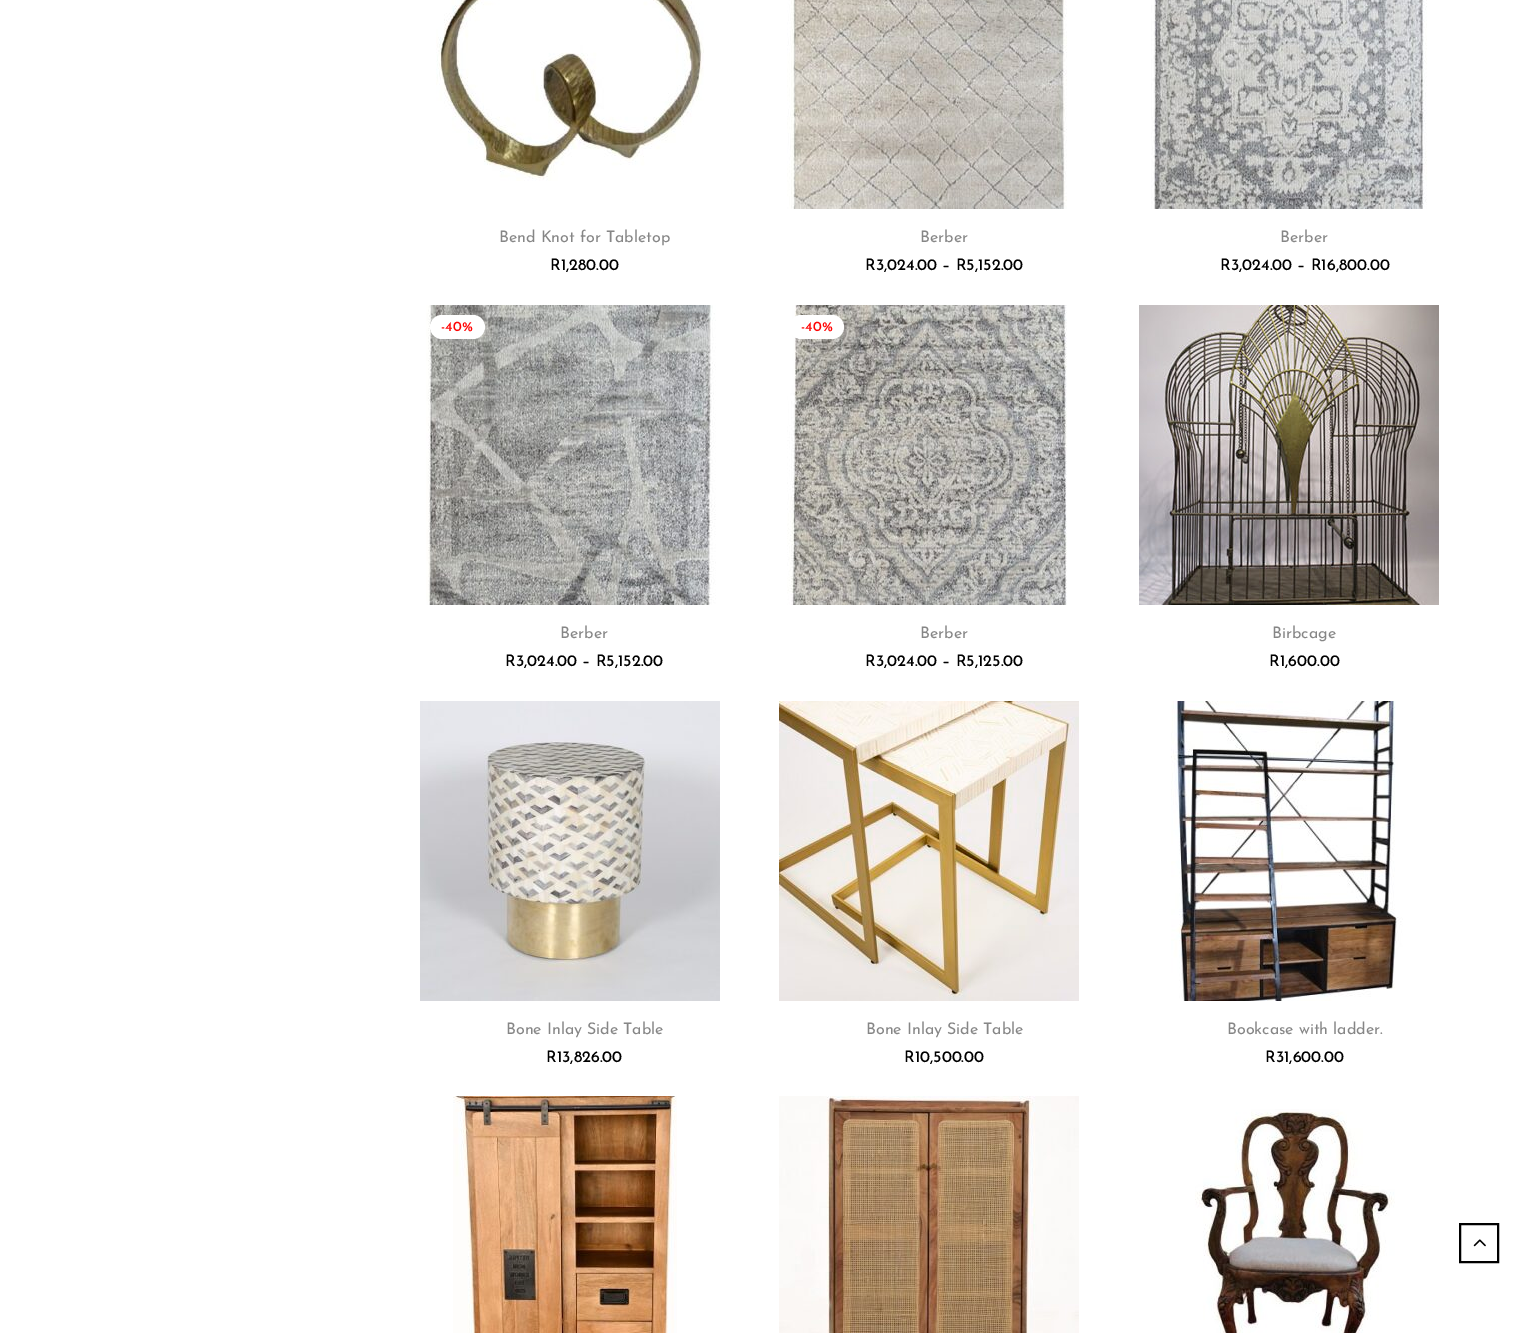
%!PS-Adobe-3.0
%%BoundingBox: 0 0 1529 1333
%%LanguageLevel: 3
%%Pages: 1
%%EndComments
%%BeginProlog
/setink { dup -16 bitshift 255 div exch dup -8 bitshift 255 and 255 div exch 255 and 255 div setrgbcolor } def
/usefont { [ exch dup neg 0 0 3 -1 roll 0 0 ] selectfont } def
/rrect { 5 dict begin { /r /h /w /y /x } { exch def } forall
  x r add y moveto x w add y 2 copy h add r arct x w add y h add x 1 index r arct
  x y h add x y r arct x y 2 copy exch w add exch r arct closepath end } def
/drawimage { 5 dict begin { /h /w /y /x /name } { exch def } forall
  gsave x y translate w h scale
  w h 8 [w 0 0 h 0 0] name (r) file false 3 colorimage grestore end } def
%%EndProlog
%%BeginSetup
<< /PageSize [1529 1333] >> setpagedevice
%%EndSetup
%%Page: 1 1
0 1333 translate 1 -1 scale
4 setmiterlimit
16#FFFFFF setink
0 0 1529 1333 rectfill
(img1.raw) 436 0 268 181 drawimage
/JosefinSans-Regular 16 usefont
16#868686 setink
499 242 moveto (Bend Knot for Tabletop) show
/JosefinSans-Medium 16 usefont
16#000000 setink
550 270 moveto (R1,280.00) show
(img2.raw) 787 0 280 209 drawimage
/JosefinSans-Regular 16 usefont
16#868686 setink
920 242 moveto (Berber) show
/JosefinSans-Medium 16 usefont
16#000000 setink
865 270 moveto (R3,024.00 – R5,152.00) show
(img3.raw) 1151 0 276 209 drawimage
/JosefinSans-Regular 16 usefont
16#868686 setink
1280 242 moveto (Berber) show
/JosefinSans-Medium 16 usefont
16#000000 setink
1220 270 moveto (R3,024.00 – R16,800.00) show
(img4.raw) 426 305 290 300 drawimage
16#FFFFFF setink
430 315 55 24 12 rrect fill
/JosefinSans-Medium 14 usefont
16#FF0404 setink
441 331 moveto (-40%) show
/JosefinSans-Regular 16 usefont
16#868686 setink
560 638 moveto (Berber) show
/JosefinSans-Medium 16 usefont
16#000000 setink
505 666 moveto (R3,024.00 – R5,152.00) show
(img5.raw) 787 305 280 300 drawimage
16#FFFFFF setink
789 315 55 24 12 rrect fill
/JosefinSans-Medium 14 usefont
16#FF0404 setink
801 331 moveto (-40%) show
/JosefinSans-Regular 16 usefont
16#868686 setink
920 638 moveto (Berber) show
/JosefinSans-Medium 16 usefont
16#000000 setink
865 666 moveto (R3,024.00 – R5,125.00) show
(img6.raw) 1139 305 300 300 drawimage
/JosefinSans-Regular 16 usefont
16#868686 setink
1272 638 moveto (Birbcage) show
/JosefinSans-Medium 16 usefont
16#000000 setink
1269 666 moveto (R1,600.00) show
(img7.raw) 420 701 300 300 drawimage
/JosefinSans-Regular 16 usefont
16#868686 setink
506 1034 moveto (Bone Inlay Side Table) show
/JosefinSans-Medium 16 usefont
16#000000 setink
546 1062 moveto (R13,826.00) show
(img8.raw) 779 701 300 300 drawimage
/JosefinSans-Regular 16 usefont
16#868686 setink
866 1034 moveto (Bone Inlay Side Table) show
/JosefinSans-Medium 16 usefont
16#000000 setink
904 1062 moveto (R10,500.00) show
(img9.raw) 1171 701 232 300 drawimage
/JosefinSans-Regular 16 usefont
16#868686 setink
1227 1034 moveto (Bookcase with ladder.) show
/JosefinSans-Medium 16 usefont
16#000000 setink
1265 1062 moveto (R31,600.00) show
(img10.raw) 453 1096 224 237 drawimage
(img11.raw) 779 1096 300 237 drawimage
(img12.raw) 1195 1109 200 224 drawimage
2 setlinewidth
1460 1224 38 38 rectstroke
(img13.raw) 1473 1239 13 8 drawimage
showpage
%%EOF
